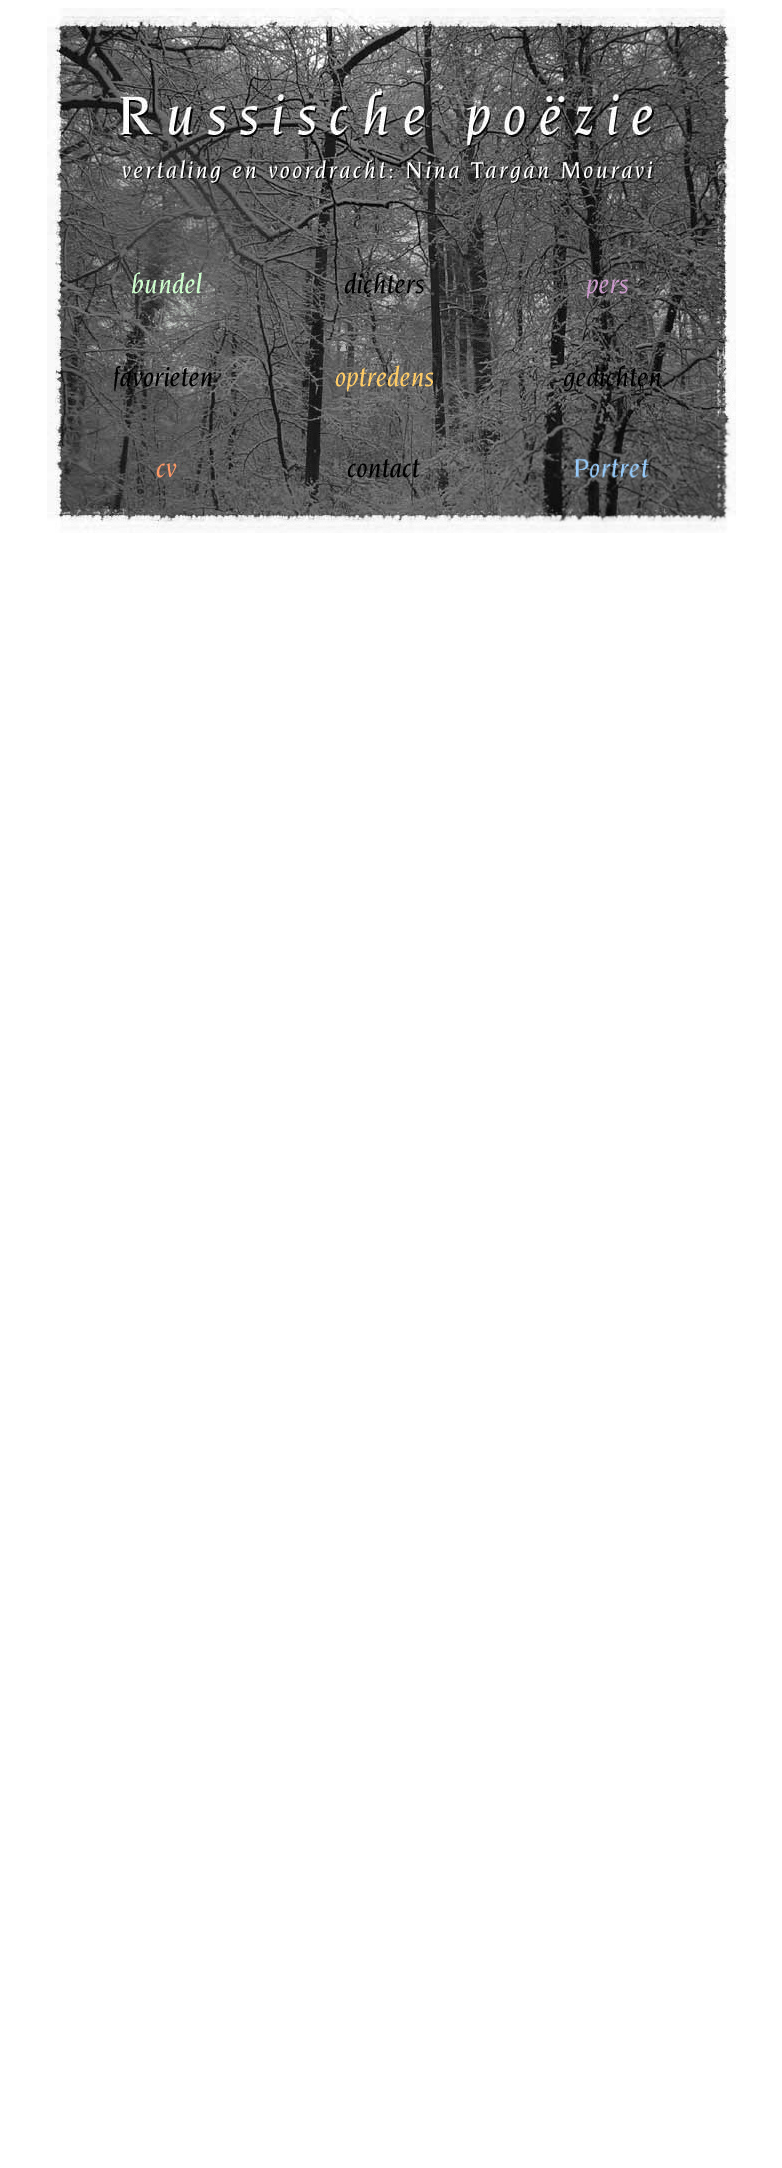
%!PS-Adobe-3.0
%%BoundingBox: 0 0 782 2168
%%LanguageLevel: 3
%%Pages: 1
%%EndComments
%%BeginProlog
/setink { dup -16 bitshift 255 div exch dup -8 bitshift 255 and 255 div exch 255 and 255 div setrgbcolor } def
/drawimage { 5 dict begin { /h /w /y /x /name } { exch def } forall
  gsave x y translate w h scale
  w h 8 [w 0 0 h 0 0] name (r) file false 3 colorimage grestore end } def
%%EndProlog
%%BeginSetup
<< /PageSize [782 2168] >> setpagedevice
%%EndSetup
%%Page: 1 1
0 2168 translate 1 -1 scale
4 setmiterlimit
16#FFFFFF setink
0 0 782 2168 rectfill
(img1.raw) 47 8 689 227 drawimage
(img2.raw) 47 235 227 96 drawimage
(img3.raw) 274 235 227 96 drawimage
(img4.raw) 501 235 235 96 drawimage
(img5.raw) 47 331 227 91 drawimage
(img6.raw) 274 331 227 91 drawimage
(img7.raw) 501 331 235 91 drawimage
(img8.raw) 47 422 227 111 drawimage
(img9.raw) 274 422 227 111 drawimage
(img10.raw) 501 422 235 111 drawimage
showpage
%%EOF
